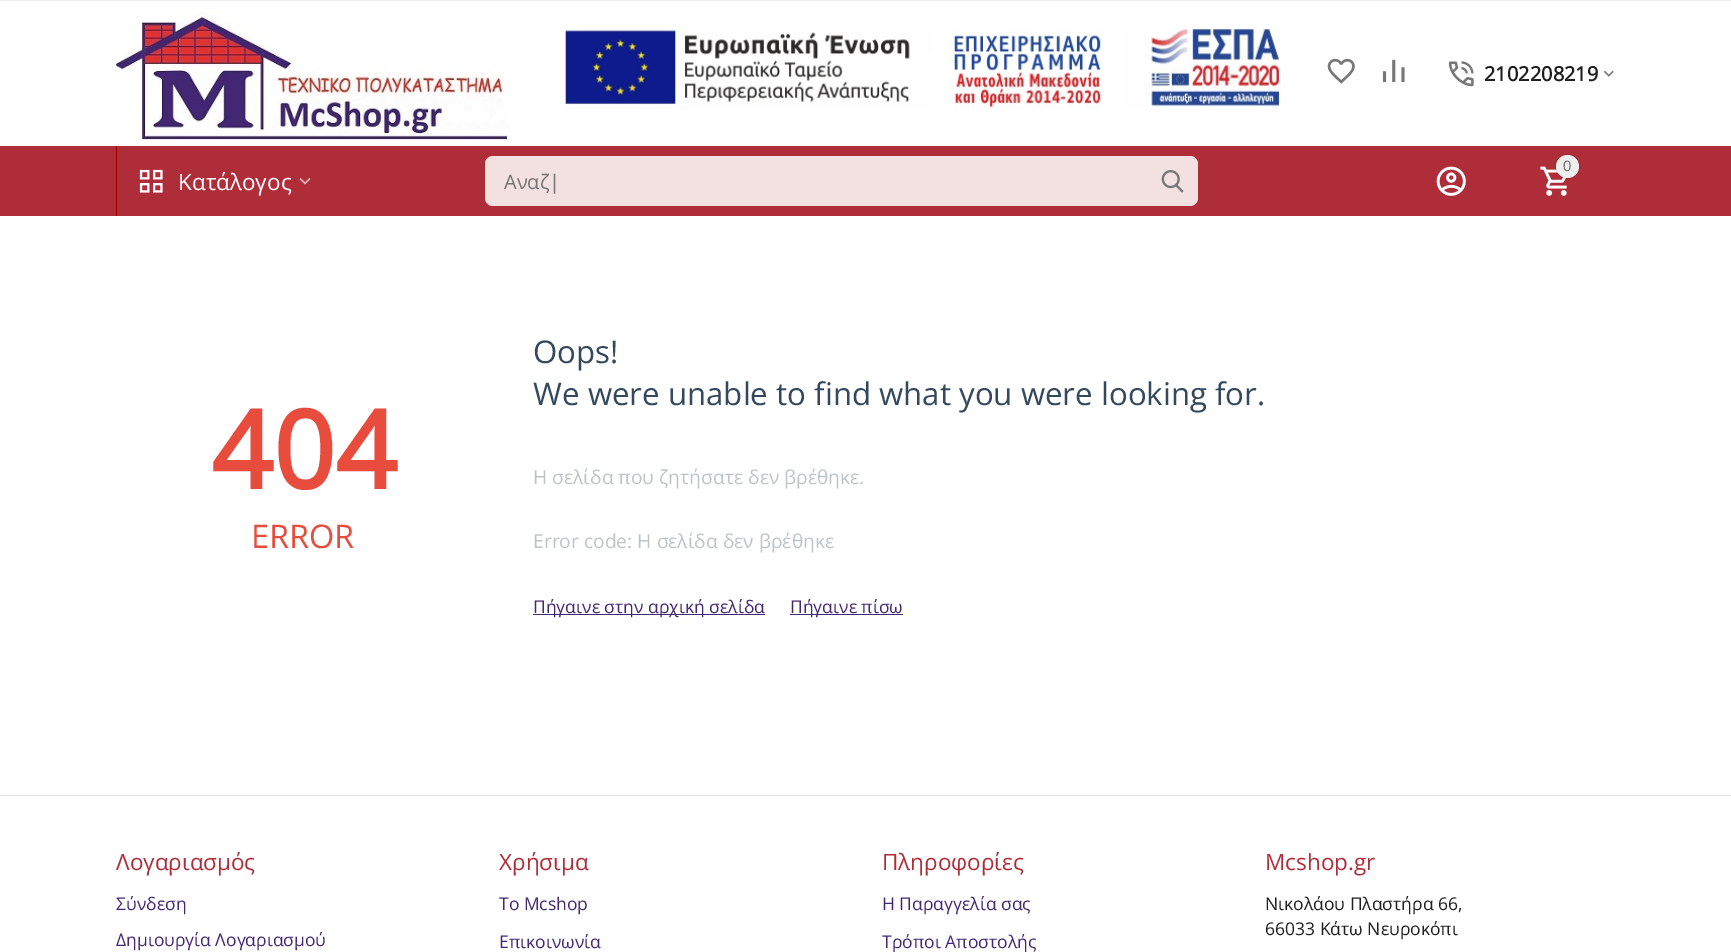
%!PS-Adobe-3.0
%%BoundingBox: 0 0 1731 952
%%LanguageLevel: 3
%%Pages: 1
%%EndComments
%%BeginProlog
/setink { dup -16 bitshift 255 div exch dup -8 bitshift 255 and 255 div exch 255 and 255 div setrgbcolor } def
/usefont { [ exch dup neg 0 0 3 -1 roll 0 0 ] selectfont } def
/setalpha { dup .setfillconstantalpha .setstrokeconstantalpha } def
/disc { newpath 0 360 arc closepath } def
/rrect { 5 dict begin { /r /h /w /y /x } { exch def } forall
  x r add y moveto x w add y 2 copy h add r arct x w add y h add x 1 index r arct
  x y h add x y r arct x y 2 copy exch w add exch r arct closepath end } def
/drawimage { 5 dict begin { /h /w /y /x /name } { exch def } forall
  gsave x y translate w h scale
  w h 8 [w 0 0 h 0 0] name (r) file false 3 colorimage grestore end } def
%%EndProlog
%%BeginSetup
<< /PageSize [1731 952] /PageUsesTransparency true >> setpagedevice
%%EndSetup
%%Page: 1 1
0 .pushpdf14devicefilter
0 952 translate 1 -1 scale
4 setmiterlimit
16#FFFFFF setink
0 0 1731 952 rectfill
16#EEEEEE setink
0 0 1731 1 rectfill
(img1.raw) 116 8 394 132 drawimage
(img2.raw) 564 27 717 83 drawimage
(img3.raw) 1327 58 28 26 drawimage
(img4.raw) 1382 59 23 24 drawimage
(img5.raw) 1448 61 26 26 drawimage
/OpenSans-Bold 20 usefont
16#1E1E1E setink
1484 81 moveto (2102208219) show
(img6.raw) 1603 70 11 7 drawimage
16#AE2D38 setink
0 146 1731 70 rectfill
(img7.raw) 1436 166 30 30 drawimage
(img8.raw) 1540 166 27 30 drawimage
0.1 setalpha
16#000000 setink
1567.5 166.5 12 disc stroke
1 setalpha
16#EEEEEE setink
1567.5 166.5 11.5 disc fill
/LiberationSans-Regular 15 usefont
16#757575 setink
1563 171 moveto (0) show
16#980000 setink
116 146 1 70 rectfill
(img9.raw) 139 169 24 24 drawimage
/OpenSans-Regular 22.5 usefont
16#FFFFFF setink
178 190 moveto (Κατάλογος) show
(img10.raw) 299 177 12 8 drawimage
16#F3E0E1 setink
485 156 713 50 8 rrect fill
/OpenSans-Regular 20 usefont
16#757575 setink
504 189 moveto (Αναζ|) show
(img11.raw) 1161 170 23 23 drawimage
/OpenSans-Bold 108 usefont
16#E74C3C setink
211 489 moveto (404) show
/OpenSans-Regular 32.5 usefont
251 548 moveto (ERROR) show
/OpenSans-Regular 31.25 usefont
16#34495E setink
533 363 moveto (Oops!) show
533 405 moveto (We were unable to find what you were looking for.) show
/OpenSans-Regular 19.25 usefont
16#BDC3C7 setink
533 484 moveto (Η σελίδα που ζητήσατε δεν βρέθηκε.) show
533 548 moveto (Error code: Η σελίδα δεν βρέθηκε) show
16#432773 setink
533 614 232 1 rectfill
/OpenSans-Regular 17.5 usefont
533 613 moveto (Πήγαινε στην αρχική σελίδα) show
790 614 113 1 rectfill
790 613 moveto (Πήγαινε πίσω) show
16#E1E1E1 setink
0 795 1731 1 rectfill
/OpenSans-Regular 22.5 usefont
16#AE2D38 setink
116 870 moveto (Λογαριασμός) show
/OpenSans-Regular 17.5 usefont
16#432773 setink
116 910 moveto (Σύνδεση) show
116 946 moveto (Δημιουργία Λογαριασμού) show
/OpenSans-Regular 22.5 usefont
16#AE2D38 setink
499 870 moveto (Χρήσιμα) show
/OpenSans-Regular 17.5 usefont
16#432773 setink
499 910 moveto (Το Mcshop) show
499 948 moveto (Επικοινωνία) show
/OpenSans-Regular 22.5 usefont
16#AE2D38 setink
882 870 moveto (Πληροφορίες) show
/OpenSans-Regular 17.5 usefont
16#432773 setink
882 910 moveto (Η Παραγγελία σας) show
882 948 moveto (Τρόποι Αποστολής) show
/OpenSans-Regular 22.5 usefont
16#AE2D38 setink
1265 870 moveto (Mcshop.gr) show
/OpenSans-Regular 17.5 usefont
16#1E1E1E setink
1265 910 moveto (Νικολάου Πλαστήρα 66,) show
1265 935 moveto (66033 Κάτω Νευροκόπι) show
.poppdf14devicefilter showpage
%%EOF
